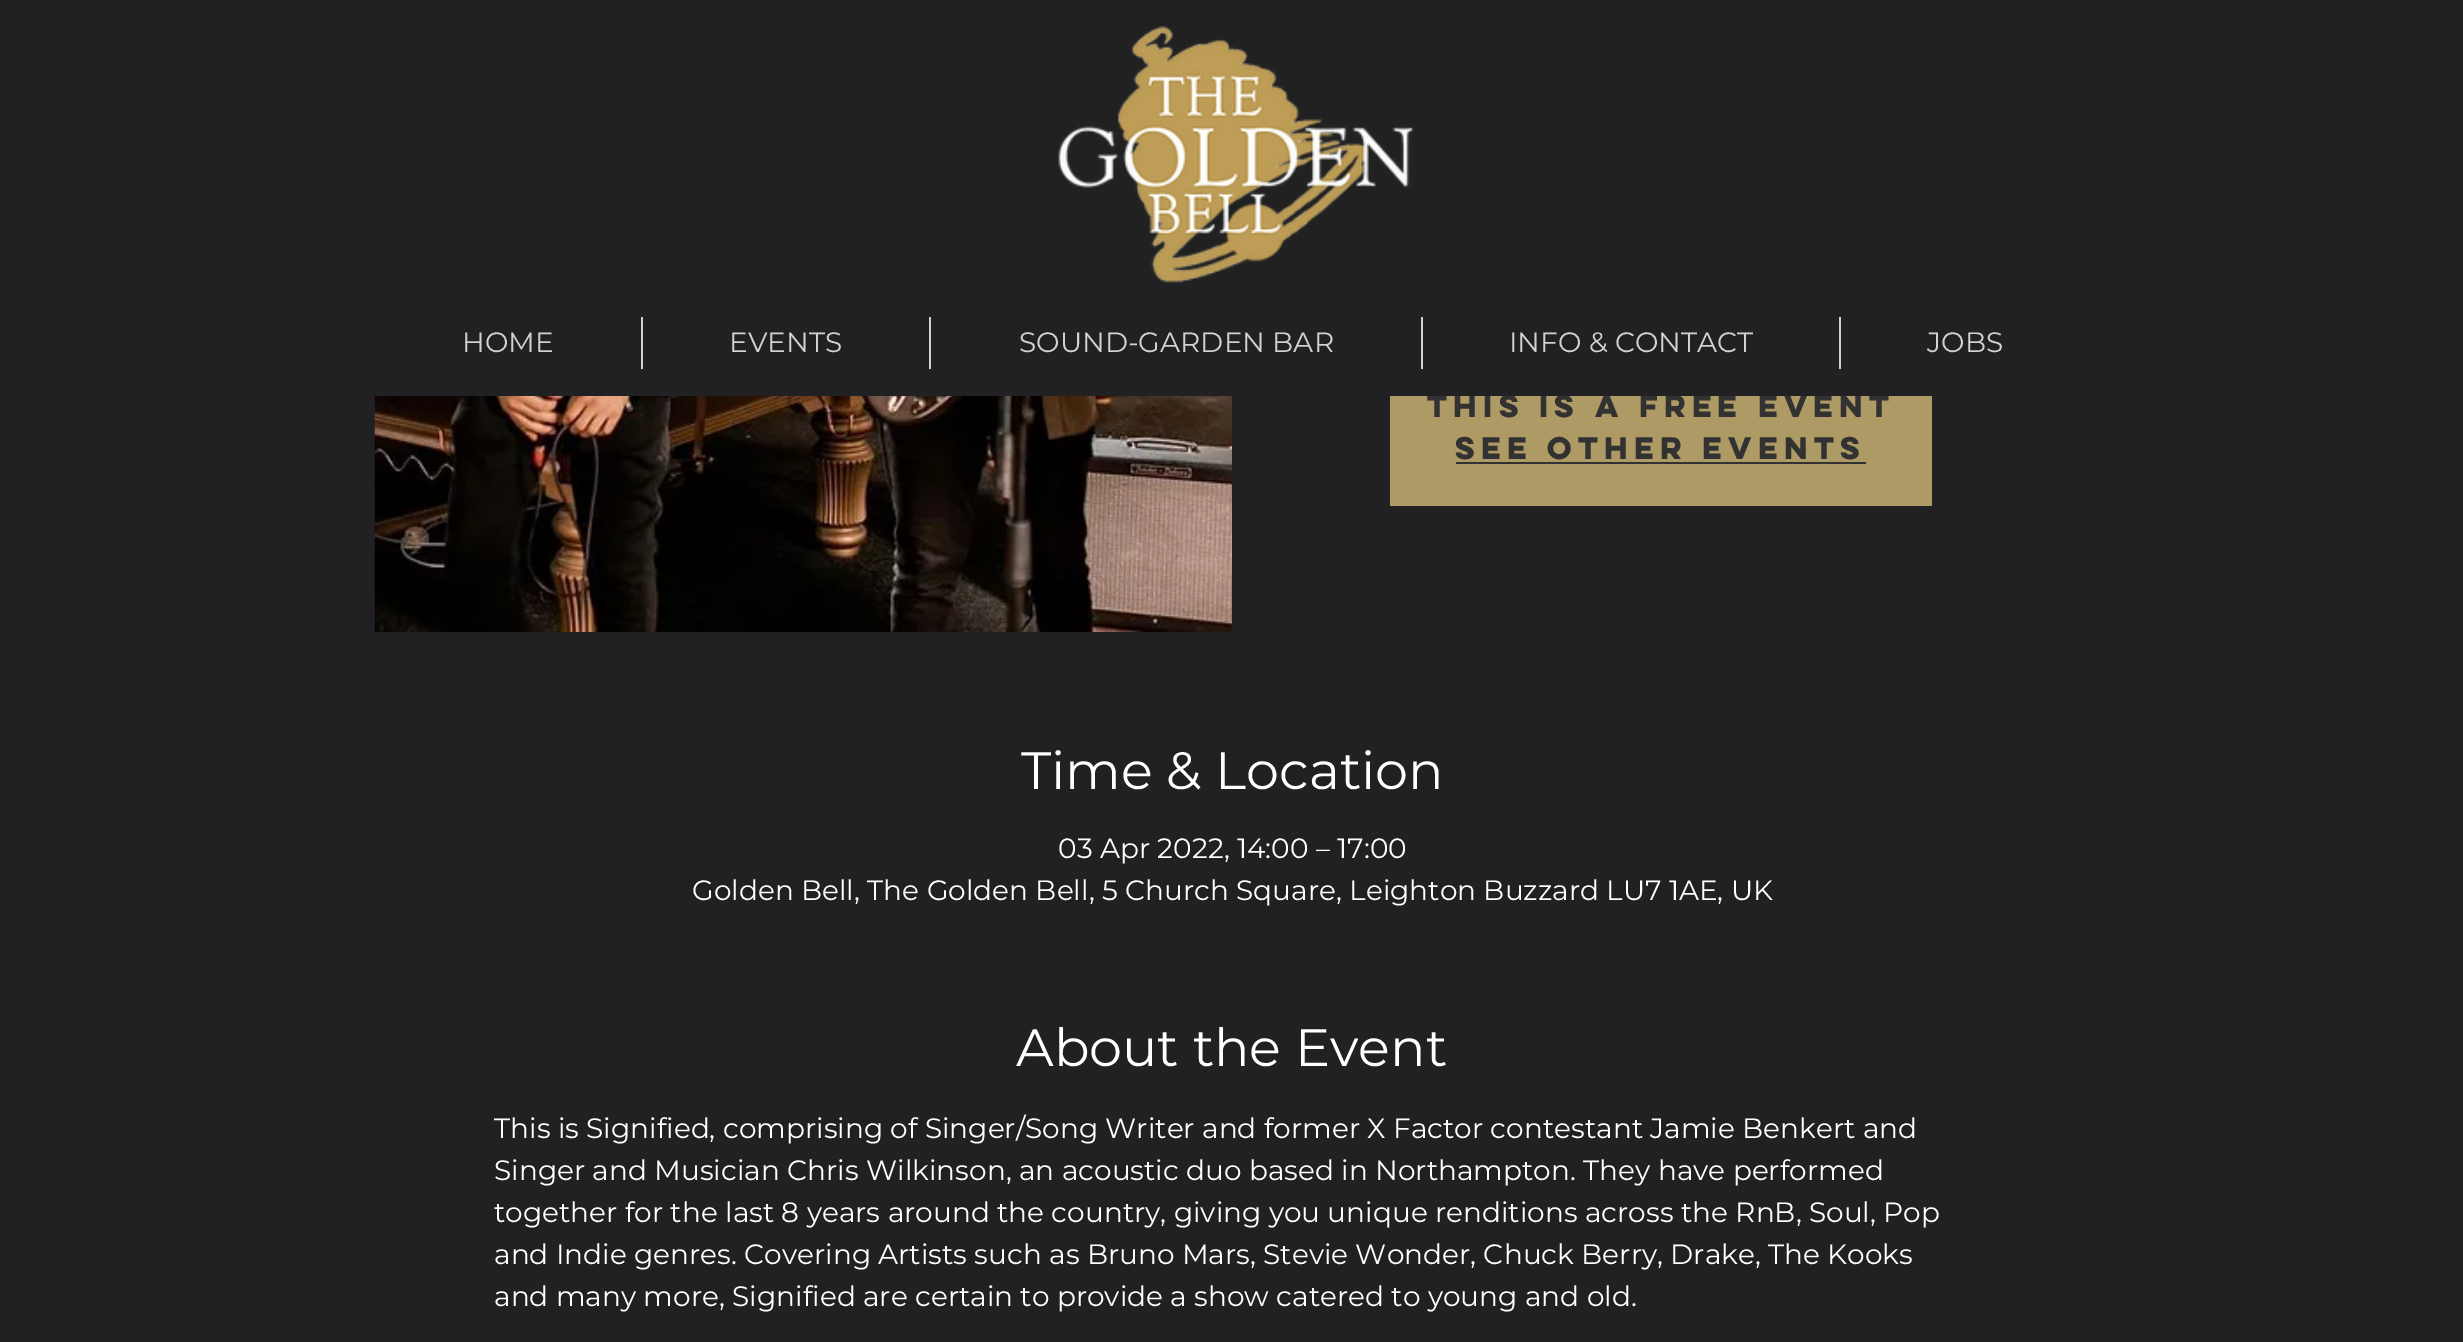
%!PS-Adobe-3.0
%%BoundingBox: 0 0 2463 1342
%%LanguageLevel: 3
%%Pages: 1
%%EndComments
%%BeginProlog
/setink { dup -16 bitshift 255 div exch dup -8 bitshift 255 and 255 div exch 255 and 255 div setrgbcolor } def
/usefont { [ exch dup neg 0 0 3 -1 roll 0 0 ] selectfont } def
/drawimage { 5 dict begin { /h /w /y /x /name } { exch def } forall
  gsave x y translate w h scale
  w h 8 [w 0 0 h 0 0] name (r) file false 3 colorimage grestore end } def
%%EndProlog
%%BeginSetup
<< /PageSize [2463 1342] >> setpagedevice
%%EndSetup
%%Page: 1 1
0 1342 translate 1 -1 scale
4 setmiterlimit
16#212023 setink
0 0 2463 1342 rectfill
(img1.raw) 1058 26 355 257 drawimage
/Montserrat-Regular 28 usefont
16#D2D2D2 setink
462 352 moveto (HOME) show
641 317 2 52 rectfill
729 352 moveto (EVENTS) show
929 317 2 52 rectfill
1019 352 moveto (SOUND-GARDEN BAR) show
1421 317 2 52 rectfill
1509 352 moveto (INFO & CONTACT) show
1839 317 2 52 rectfill
1927 352 moveto (JOBS) show
16#AE9A64 setink
1390 396 542 110 rectfill
/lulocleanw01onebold-Bold 28 usefont
16#323232 setink
1427 417 moveto (This is a FREE event) show
16#212121 setink
1426 394 463 2 rectfill
(img2.raw) 374 396 858 236 drawimage
16#323232 setink
1455 459 moveto (See other events) show
1456 462 410 2 rectfill
/Montserrat-Regular 52.5 usefont
16#FFFFFF setink
1021 789 moveto (Time & Location) show
/Montserrat-Regular 28 usefont
1058 858 moveto (03 Apr 2022, 14:00 – 17:00) show
692 900 moveto (Golden Bell, The Golden Bell, 5 Church Square, Leighton Buzzard LU7 1AE, UK) show
/Montserrat-Regular 52.5 usefont
1016 1066 moveto (About the Event) show
/Montserrat-Regular 28 usefont
[
    [(This is Signified, comprising of Singer/Song Writer and former X Factor contestant Jamie Benkert and) 494 1138]
    [(Singer and Musician Chris Wilkinson, an acoustic duo based in Northampton. They have performed) 494 1180]
    [(together for the last 8 years around the country, giving you unique renditions across the RnB, Soul, Pop) 494 1222]
    [(and Indie genres. Covering Artists such as Bruno Mars, Stevie Wonder, Chuck Berry, Drake, The Kooks) 494 1264]
    [(and many more, Signified are certain to provide a show catered to young and old.) 494 1306]
] { aload pop moveto show } forall
showpage
%%EOF
